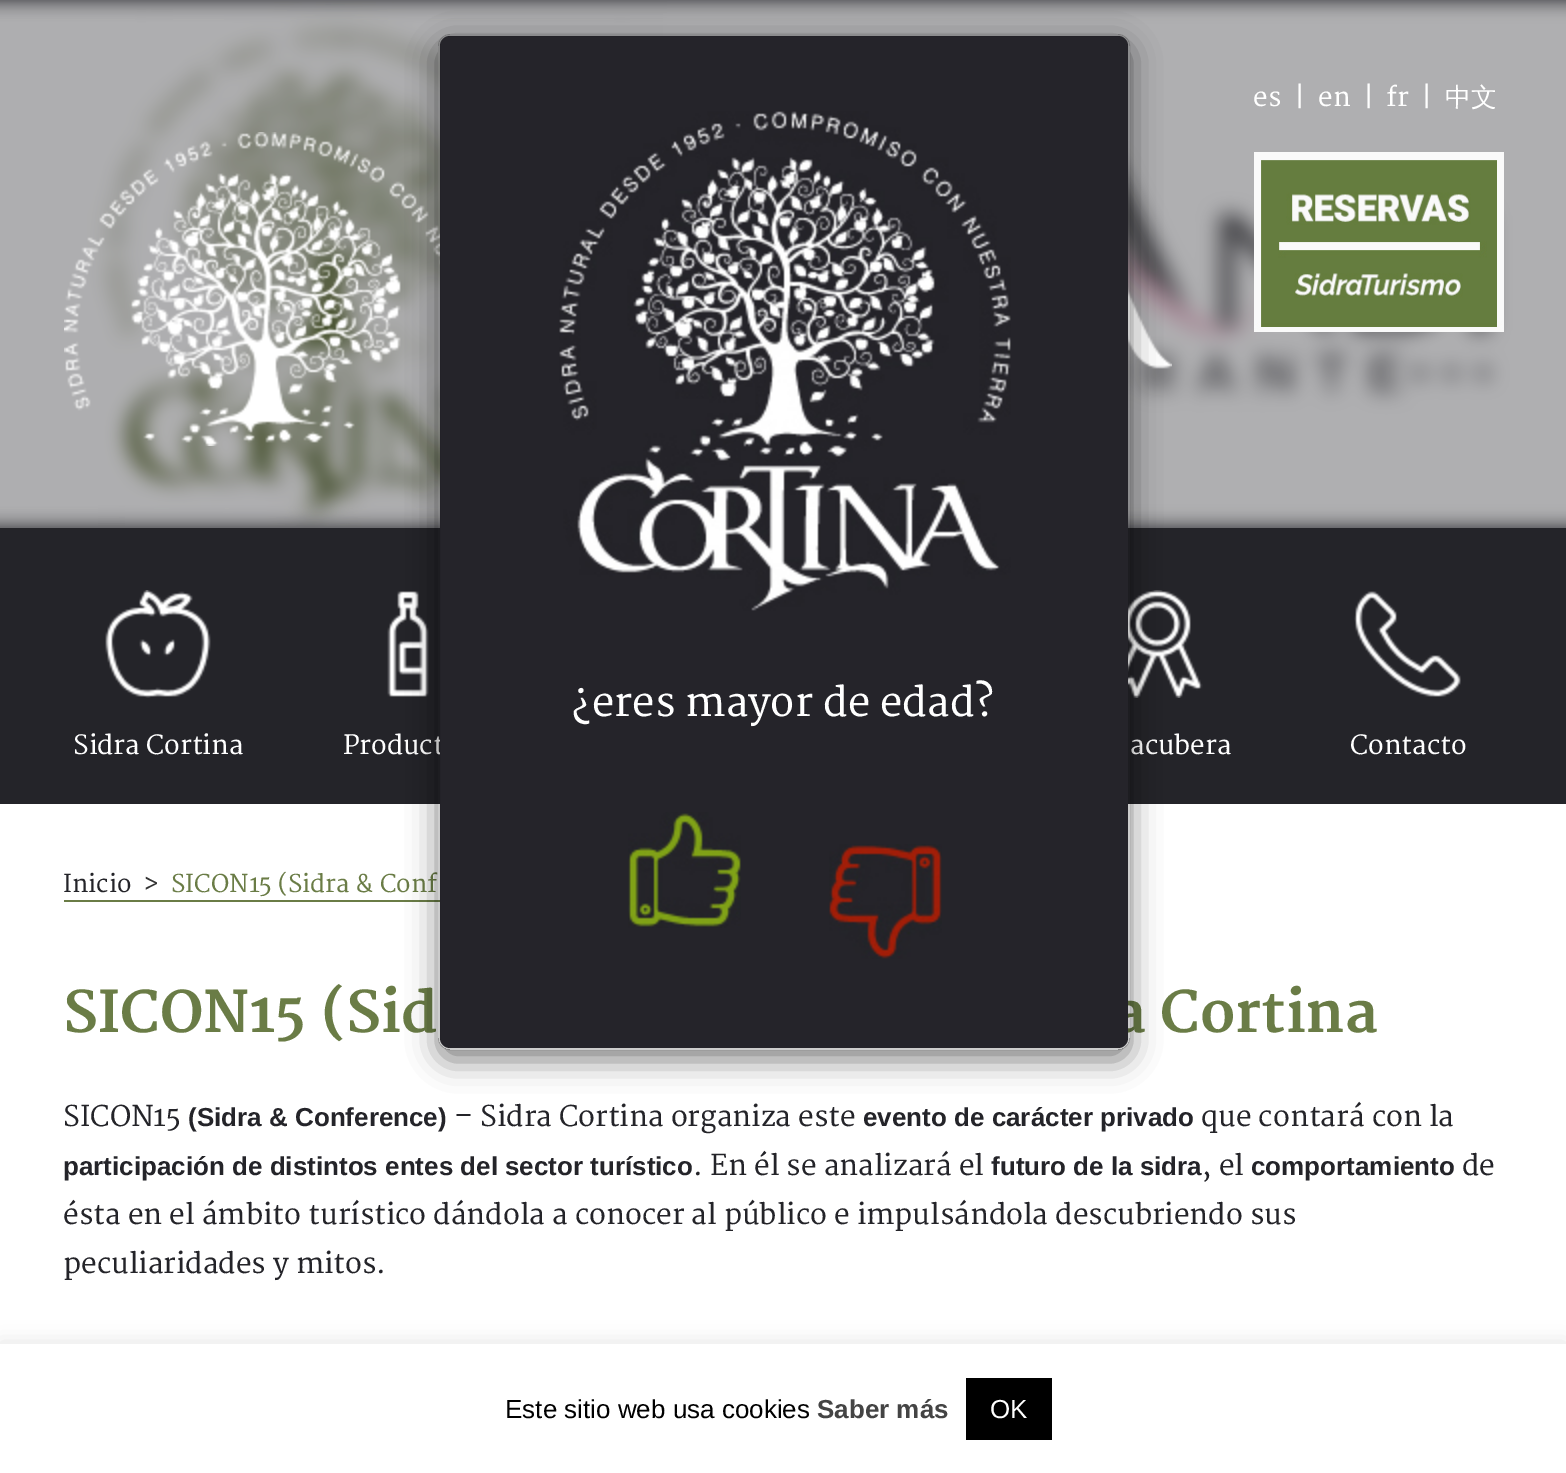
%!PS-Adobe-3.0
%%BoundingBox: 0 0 1566 1473
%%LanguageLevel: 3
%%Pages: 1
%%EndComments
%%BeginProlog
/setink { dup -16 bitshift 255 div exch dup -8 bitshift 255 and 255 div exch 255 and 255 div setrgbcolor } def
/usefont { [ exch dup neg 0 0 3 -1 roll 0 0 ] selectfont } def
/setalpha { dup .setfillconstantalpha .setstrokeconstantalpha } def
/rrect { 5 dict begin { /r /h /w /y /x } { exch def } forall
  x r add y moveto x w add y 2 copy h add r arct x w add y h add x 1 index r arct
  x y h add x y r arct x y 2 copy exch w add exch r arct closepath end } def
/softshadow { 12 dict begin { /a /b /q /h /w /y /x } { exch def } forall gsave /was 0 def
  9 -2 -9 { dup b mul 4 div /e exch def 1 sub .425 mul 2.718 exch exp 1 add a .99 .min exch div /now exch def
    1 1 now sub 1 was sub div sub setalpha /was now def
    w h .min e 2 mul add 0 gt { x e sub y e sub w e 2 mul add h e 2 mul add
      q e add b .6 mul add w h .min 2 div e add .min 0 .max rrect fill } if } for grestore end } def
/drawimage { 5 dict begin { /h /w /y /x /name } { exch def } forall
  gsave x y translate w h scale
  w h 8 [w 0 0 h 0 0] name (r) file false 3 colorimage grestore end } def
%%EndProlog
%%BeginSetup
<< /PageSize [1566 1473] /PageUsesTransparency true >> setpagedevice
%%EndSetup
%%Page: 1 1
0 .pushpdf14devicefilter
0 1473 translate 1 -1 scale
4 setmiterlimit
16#FFFFFF setink
0 0 1566 1473 rectfill
16#242429 setink
0 0 1566 804 rectfill
(img1.raw) 0 0 1566 528 drawimage
/Merriweather-Regular 26 usefont
16#FFFFFF setink
[
    [(es) 1253 106]
    [(|) 1294 106]
    [(en) 1318 106]
    [(|) 1363 106]
    [(fr) 1386 106]
    [(|) 1421 106]
] { aload pop moveto show } forall
/WenQuanYiZenHei-Medium 26 usefont
1445 106 moveto (中文) show
(img2.raw) 1254 152 250 180 drawimage
(img3.raw) 64 132 1108 314 drawimage
105 590 106 108 rectfill
(img4.raw) 104 590 108 108 drawimage
/Merriweather-Regular 26 usefont
73 754 moveto (Sidra Cortina) show
387 591 42 106 rectfill
(img5.raw) 354 590 86 108 drawimage
343 754 moveto (Product) show
1128 590 75 108 rectfill
(img6.raw) 1128 590 84 108 drawimage
1130 754 moveto (acubera) show
1354 591 107 106 rectfill
(img7.raw) 1354 590 108 108 drawimage
1350 754 moveto (Contacto) show
/Merriweather-Regular 24 usefont
16#242429 setink
63 892 moveto (Inicio) show
16#333333 setink
143 892 moveto (>) show
16#6A7C46 setink
171 892 moveto (SICON15 \(Sidra & Conf) show
64 900 376 2 rectfill
/Merriweather-Bold 56 usefont
63 1032 moveto (SICON15 \(Sid) show
1113 1032 moveto (a Cortina) show
/Merriweather-Regular 28 usefont
16#242429 setink
63 1126 moveto (SICON15) show
/LiberationSans-Bold 26 usefont
188 1126 moveto (\(Sidra & Conference\)) show
/Merriweather-Regular 28 usefont
454 1126 moveto (– Sidra Cortina organiza este) show
/LiberationSans-Bold 26 usefont
863 1126 moveto (evento de carácter privado) show
/Merriweather-Regular 28 usefont
1201 1126 moveto (que contará con la) show
/LiberationSans-Bold 26 usefont
63 1175 moveto (participación de distintos entes del sector turístico) show
/Merriweather-Regular 28 usefont
693 1175 moveto (. En él se analizará el) show
/LiberationSans-Bold 26 usefont
991 1175 moveto (futuro de la sidra) show
/Merriweather-Regular 28 usefont
1202 1175 moveto (, el) show
/LiberationSans-Bold 26 usefont
1251 1175 moveto (comportamiento) show
/Merriweather-Regular 28 usefont
[
    [(de) 1462 1175]
    [(ésta en el ámbito turístico dándola a conocer al público e impulsándola descubriendo sus) 63 1224]
    [(peculiaridades y mitos.) 63 1273]
] { aload pop moveto show } forall
gsave
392 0 moveto 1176 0 lineto 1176 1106 lineto 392 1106 lineto closepath 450 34 moveto 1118 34 lineto 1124.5 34 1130 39.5 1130 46 curveto 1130 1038 lineto 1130 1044.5 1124.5 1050 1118 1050 curveto 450 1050 lineto 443.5 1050 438 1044.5 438 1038 curveto 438 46 lineto 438 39.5 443.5 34 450 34 curveto closepath eoclip newpath
16#000000 setink
438 44 692 1016 12 15 0.5 softshadow
grestore
16#25242A setink
440 36 688 1012 10 rrect fill
0.2 setalpha
16#000000 setink
2 setlinewidth
439 35 690 1014 11 rrect stroke
1 setalpha
(img8.raw) 559 111 452 500 drawimage
/Merriweather-Regular 40 usefont
16#FFFFFF setink
572 716 moveto (¿eres mayor de edad?) show
(img9.raw) 628 812 113 116 drawimage
(img10.raw) 829 844 113 115 drawimage
16#ACABAB setink
0 1342 1566 130 0 10 0.3 softshadow
16#FFFFFF setink
0 1344 1566 129 rectfill
/LiberationSans-Regular 26 usefont
16#000000 setink
505 1418 moveto (Este sitio web usa cookies) show
/LiberationSans-Bold 26 usefont
16#444444 setink
817 1418 moveto (Saber más) show
16#000000 setink
966 1378 86 62 rectfill
/LiberationSans-Regular 26 usefont
16#FFFFFF setink
990 1418 moveto (OK) show
.poppdf14devicefilter showpage
%%EOF
